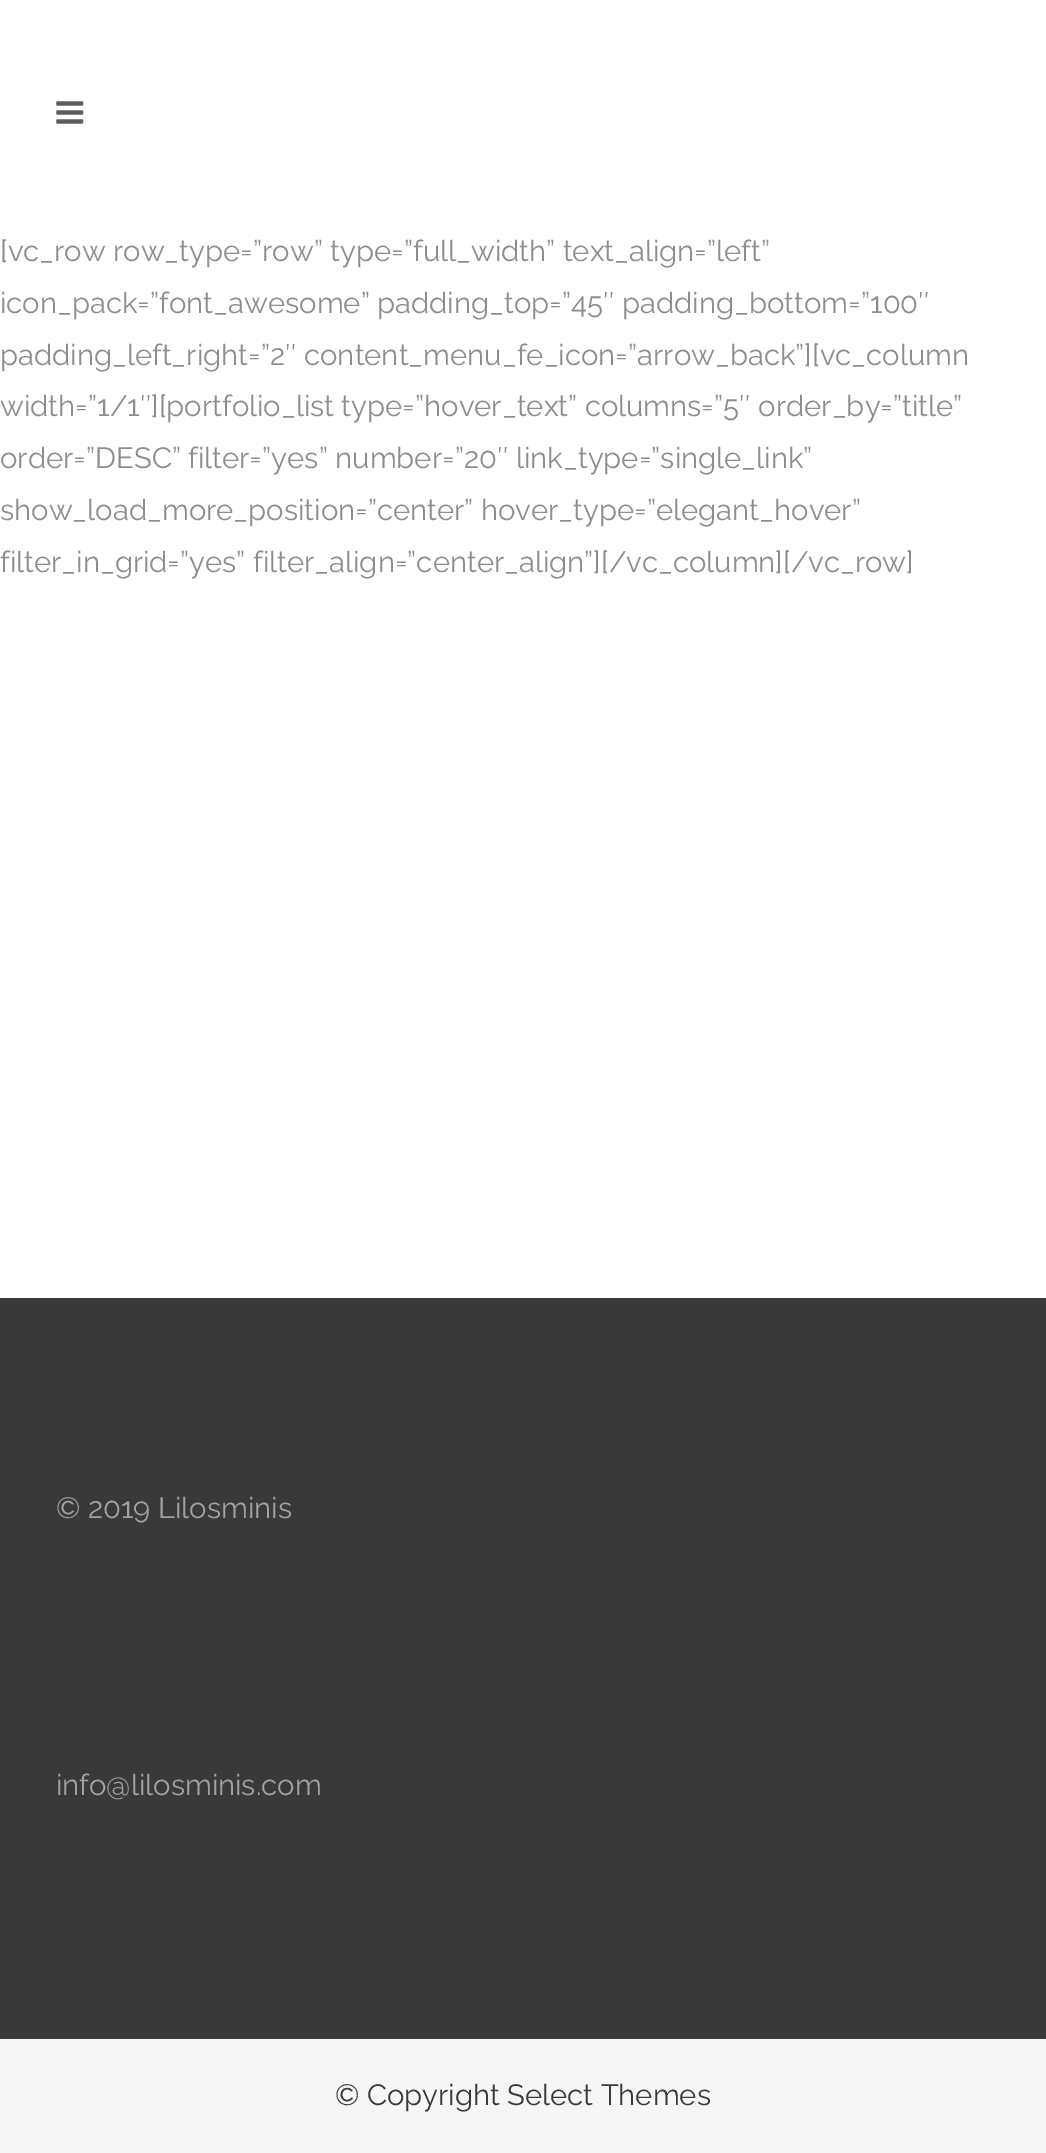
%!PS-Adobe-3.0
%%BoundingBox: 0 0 1046 2153
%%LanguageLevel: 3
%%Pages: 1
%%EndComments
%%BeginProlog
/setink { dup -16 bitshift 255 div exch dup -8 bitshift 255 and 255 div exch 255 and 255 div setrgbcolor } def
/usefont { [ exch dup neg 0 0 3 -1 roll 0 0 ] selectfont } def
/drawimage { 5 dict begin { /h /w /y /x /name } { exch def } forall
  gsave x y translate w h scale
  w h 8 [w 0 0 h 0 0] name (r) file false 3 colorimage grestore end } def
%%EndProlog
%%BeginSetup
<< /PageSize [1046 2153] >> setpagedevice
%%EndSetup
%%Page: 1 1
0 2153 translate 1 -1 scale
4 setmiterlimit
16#FFFFFF setink
0 0 1046 2153 rectfill
(img1.raw) 56 101 28 23 drawimage
/Raleway-Regular 29.25 usefont
16#8D8D8D setink
[
    [([vc_row row_type=”row” type=”full_width” text_align=”left”) 0 261]
    [(icon_pack=”font_awesome” padding_top=”45″ padding_bottom=”100″) 0 313]
    [(padding_left_right=”2″ content_menu_fe_icon=”arrow_back”][vc_column) 0 365]
    [(width=”1/1″][portfolio_list type=”hover_text” columns=”5″ order_by=”title”) 0 416]
    [(order=”DESC” filter=”yes” number=”20″ link_type=”single_link”) 0 468]
    [(show_load_more_position=”center” hover_type=”elegant_hover”) 0 520]
    [(filter_in_grid=”yes” filter_align=”center_align”][/vc_column][/vc_row]) 0 572]
] { aload pop moveto show } forall
16#393939 setink
0 1298 1046 741 rectfill
16#A2A2A2 setink
56 1518 moveto (© 2019 Lilosminis) show
56 1795 moveto (info@lilosminis.com) show
16#F6F6F6 setink
0 2039 1046 114 rectfill
16#393939 setink
335 2105 moveto (© Copyright Select Themes) show
showpage
%%EOF
